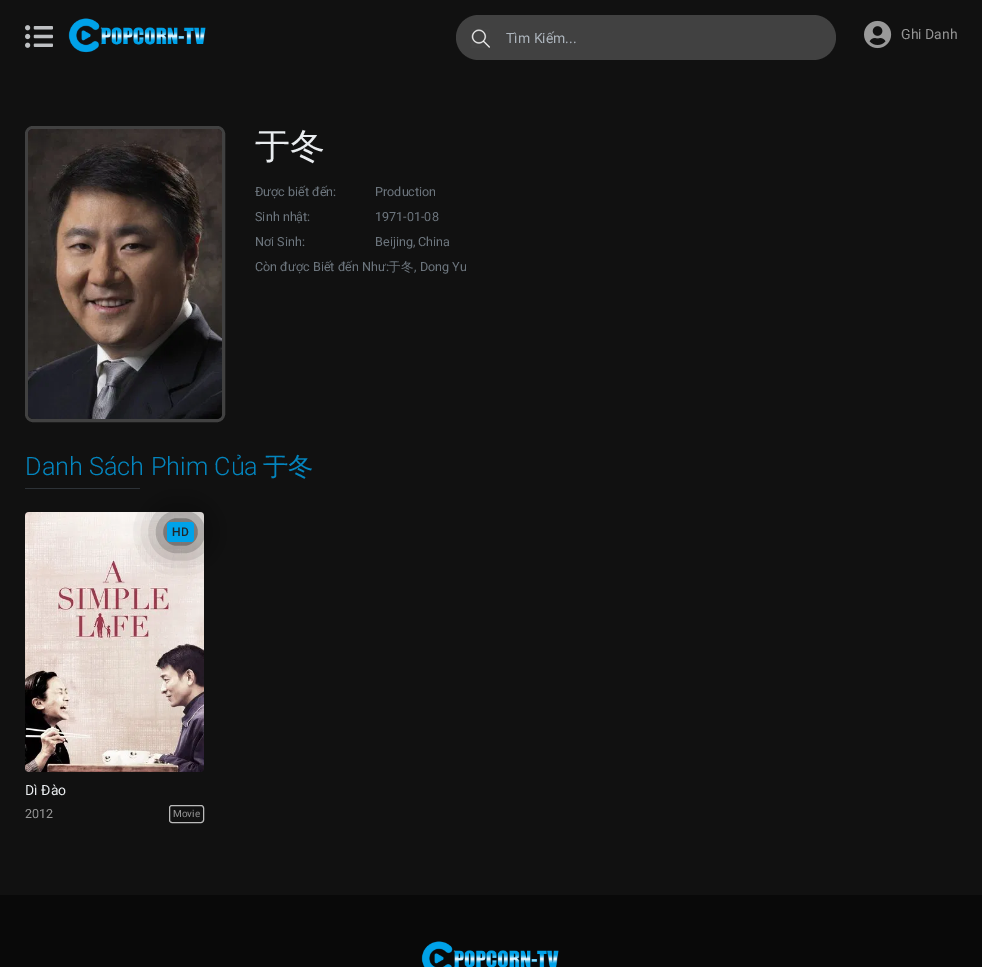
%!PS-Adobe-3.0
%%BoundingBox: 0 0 982 967
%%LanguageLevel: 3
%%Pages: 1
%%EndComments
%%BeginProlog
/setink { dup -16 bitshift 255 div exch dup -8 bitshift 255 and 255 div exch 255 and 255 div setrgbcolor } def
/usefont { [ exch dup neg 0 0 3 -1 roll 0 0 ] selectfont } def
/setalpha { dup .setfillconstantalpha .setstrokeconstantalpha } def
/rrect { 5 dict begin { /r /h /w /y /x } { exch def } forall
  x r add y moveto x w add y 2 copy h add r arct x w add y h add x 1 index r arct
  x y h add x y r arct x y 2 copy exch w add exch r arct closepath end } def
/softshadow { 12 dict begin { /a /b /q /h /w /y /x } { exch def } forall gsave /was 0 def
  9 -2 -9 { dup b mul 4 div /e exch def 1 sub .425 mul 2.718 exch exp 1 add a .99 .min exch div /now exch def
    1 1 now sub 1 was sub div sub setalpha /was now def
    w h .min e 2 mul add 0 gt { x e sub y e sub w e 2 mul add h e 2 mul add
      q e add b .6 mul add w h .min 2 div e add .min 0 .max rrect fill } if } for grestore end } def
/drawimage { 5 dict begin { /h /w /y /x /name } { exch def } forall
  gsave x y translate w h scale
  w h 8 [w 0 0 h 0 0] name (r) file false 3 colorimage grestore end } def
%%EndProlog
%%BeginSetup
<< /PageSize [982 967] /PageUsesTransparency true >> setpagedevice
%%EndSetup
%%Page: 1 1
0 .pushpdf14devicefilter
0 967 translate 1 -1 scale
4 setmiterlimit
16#111111 setink
0 0 982 967 rectfill
(img1.raw) 25 25 28 23 drawimage
(img2.raw) 68 18 138 35 drawimage
16#414141 setink
456 15 380 45 22.5 rrect fill
(img3.raw) 471 29 19 19 drawimage
/Roboto-Regular 14 usefont
16#ADB5BD setink
506 43 moveto (Tìm Kiếm...) show
(img4.raw) 864 20 28 29 drawimage
16#959595 setink
901 39 moveto (Ghi Danh) show
16#414141 setink
3 setlinewidth
26.5 127.5 197 293 6.5 rrect stroke
(img5.raw) 28 129 194 290 drawimage
/WenQuanYiZenHei-Medium 35 usefont
16#E9ECEF setink
255 158 moveto (于冬) show
/Roboto-Regular 12.6 usefont
16#6C757D setink
[
    [(Được biết đến:) 255 196]
    [(Production) 375 196]
    [(Sinh nhật:) 255 221]
    [(1971-01-08) 375 221]
    [(Nơi Sinh:) 255 246]
    [(Beijing, China) 375 246]
    [(Còn được Biết đến Như:) 255 271]
] { aload pop moveto show } forall
/WenQuanYiZenHei-Medium 12.6 usefont
388 271 moveto (于冬) show
/Roboto-Regular 12.6 usefont
414 271 moveto (, Dong Yu) show
/Roboto-Light 25.25 usefont
16#0385BE setink
25 475 moveto (Danh Sách Phim Của) show
/WenQuanYiZenHei-Medium 25.25 usefont
263 475 moveto (于冬) show
16#2D3237 setink
25 488 115 1 rectfill
(img6.raw) 25 512 179 260 drawimage
16#000000 setink
167 522 27 20 3 15 1 softshadow
16#00A2E9 setink
167 522 27 20 3 rrect fill
/Roboto-Medium 12 usefont
16#212529 setink
172 536 moveto (HD) show
/Roboto-Regular 14 usefont
16#E9ECEF setink
25 795 moveto (Dì Đào) show
/Roboto-Regular 12.6 usefont
16#959595 setink
25 818 moveto (2012) show
16#BBBBBB setink
1 setlinewidth
169.5 805.5 34 17 2.5 rrect stroke
/Roboto-Regular 10 usefont
16#959595 setink
173 817 moveto (Movie) show
16#090909 setink
0 895 982 72 rectfill
(img7.raw) 421 941 138 26 drawimage
.poppdf14devicefilter showpage
%%EOF
